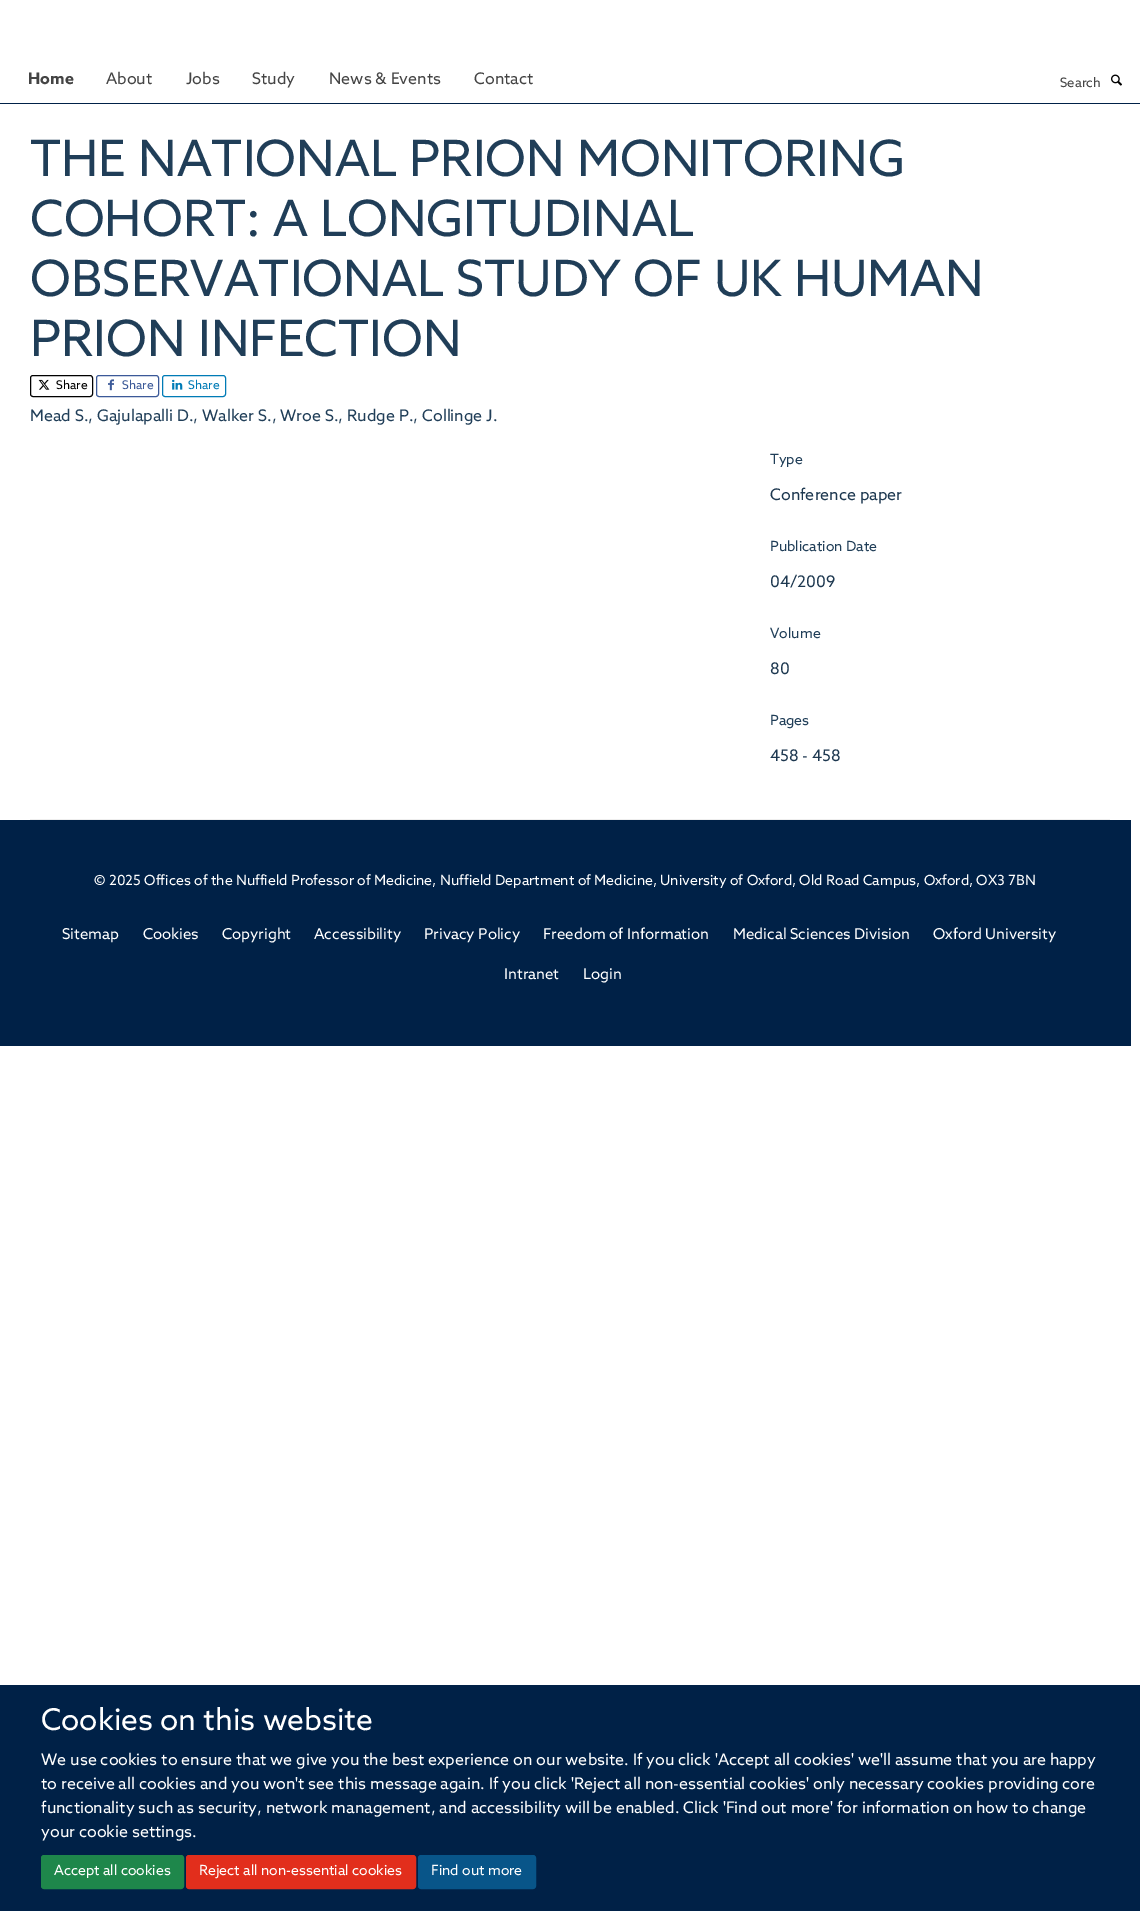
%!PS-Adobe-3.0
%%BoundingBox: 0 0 1140 1911
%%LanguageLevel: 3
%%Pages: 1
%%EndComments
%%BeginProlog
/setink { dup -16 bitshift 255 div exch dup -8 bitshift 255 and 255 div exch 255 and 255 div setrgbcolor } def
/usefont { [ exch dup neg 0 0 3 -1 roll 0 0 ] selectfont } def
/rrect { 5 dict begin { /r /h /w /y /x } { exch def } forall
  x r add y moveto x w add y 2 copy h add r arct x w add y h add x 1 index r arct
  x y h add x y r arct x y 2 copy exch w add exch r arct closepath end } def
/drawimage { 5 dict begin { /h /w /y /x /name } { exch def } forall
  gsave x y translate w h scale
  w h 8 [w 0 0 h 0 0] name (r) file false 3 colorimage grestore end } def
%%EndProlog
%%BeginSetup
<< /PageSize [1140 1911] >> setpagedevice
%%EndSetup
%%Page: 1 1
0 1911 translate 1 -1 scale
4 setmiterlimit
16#FFFFFF setink
0 0 1140 1911 rectfill
16#002147 setink
0 103 1140 1 rectfill
/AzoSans-Bold 16 usefont
16#444444 setink
28 84 moveto (Home) show
/AzoSans-Regular 16 usefont
[
    [(About) 106 84]
    [(Jobs) 186 84]
    [(Study) 252 84]
    [(News & Events) 329 84]
    [(Contact) 474 84]
] { aload pop moveto show } forall
/AzoSans-Regular 13 usefont
1060 87 moveto (Search) show
(img1.raw) 1111 74 11 12 drawimage
/AzoSans-Regular 50 usefont
16#203E58 setink
[
    [(THE NATIONAL PRION MONITORING) 30 176]
    [(COHORT: A LONGITUDINAL) 30 236]
    [(OBSERVATIONAL STUDY OF UK HUMAN) 30 296]
    [(PRION INFECTION) 30 356]
] { aload pop moveto show } forall
16#000000 setink
30.5 375.5 62 21 2.5 rrect stroke
(img2.raw) 38 379 12 11 drawimage
/AzoSans-Regular 12 usefont
56 389 moveto (Share) show
16#3B5998 setink
96.5 375.5 62 21 2.5 rrect stroke
(img3.raw) 108 379 6 12 drawimage
122 389 moveto (Share) show
16#007BB6 setink
162.5 375.5 63 21 2.5 rrect stroke
(img4.raw) 172 379 11 11 drawimage
188 389 moveto (Share) show
/AzoSans-Regular 16 usefont
16#203E58 setink
30 421 moveto (Mead S., Gajulapalli D., Walker S., Wroe S., Rudge P., Collinge J.) show
/AzoSans-Regular 14 usefont
770 464 moveto (Type) show
/AzoSans-Regular 16 usefont
16#1D3850 setink
770 500 moveto (Conference paper) show
/AzoSans-Regular 14 usefont
16#203E58 setink
770 551 moveto (Publication Date) show
/AzoSans-Regular 16 usefont
16#1D3850 setink
770 587 moveto (04/2009) show
/AzoSans-Regular 14 usefont
16#203E58 setink
770 638 moveto (Volume) show
/AzoSans-Regular 16 usefont
16#1D3850 setink
770 674 moveto (80) show
/AzoSans-Regular 14 usefont
16#203E58 setink
770 725 moveto (Pages) show
/AzoSans-Regular 16 usefont
16#1D3850 setink
770 761 moveto (458 - 458) show
16#EEEEEE setink
30 819 1080 1 rectfill
16#002147 setink
0 820 1131 226 rectfill
/AzoSans-Regular 14 usefont
16#FFFFFF setink
94 885 moveto (© 2025 Offices of the Nuffield Professor of Medicine, Nuffield Department of Medicine, University of Oxford, Old Road Campus, Oxford, OX3 7BN) show
/AzoSans-Regular 15 usefont
[
    [(Sitemap) 62 939]
    [(Cookies) 143 939]
    [(Copyright) 222 939]
    [(Accessibility) 314 939]
    [(Privacy Policy) 424 939]
    [(Freedom of Information) 543 939]
    [(Medical Sciences Division) 733 939]
    [(Oxford University) 933 939]
    [(Intranet) 504 979]
    [(Login) 583 979]
] { aload pop moveto show } forall
16#002147 setink
0 1685 1140 226 rectfill
/AzoSans-Regular 30 usefont
16#FFFFFF setink
41 1730 moveto (Cookies on this website) show
/AzoSans-Regular 16 usefont
[
    [(We use cookies to ensure that we give you the best experience on our website. If you click 'Accept all cookies' we'll assume that you are happy) 41 1765]
    [(to receive all cookies and you won't see this message again. If you click 'Reject all non-essential cookies' only necessary cookies providing core) 41 1789]
    [(functionality such as security, network management, and accessibility will be enabled. Click 'Find out more' for information on how to change) 41 1813]
    [(your cookie settings.) 41 1837]
] { aload pop moveto show } forall
16#1E874B setink
41.5 1855.5 142 33 2.5 rrect gsave fill grestore
stroke
/AzoSans-Regular 14 usefont
16#FFFFFF setink
54 1875 moveto (Accept all cookies) show
16#E22E1C setink
186.5 1855.5 229 33 2.5 rrect gsave fill grestore
stroke
16#FFFFFF setink
199 1875 moveto (Reject all non-essential cookies) show
16#085589 setink
418.5 1855.5 117 33 2.5 rrect gsave fill grestore
stroke
16#FFFFFF setink
431 1875 moveto (Find out more) show
showpage
%%EOF
